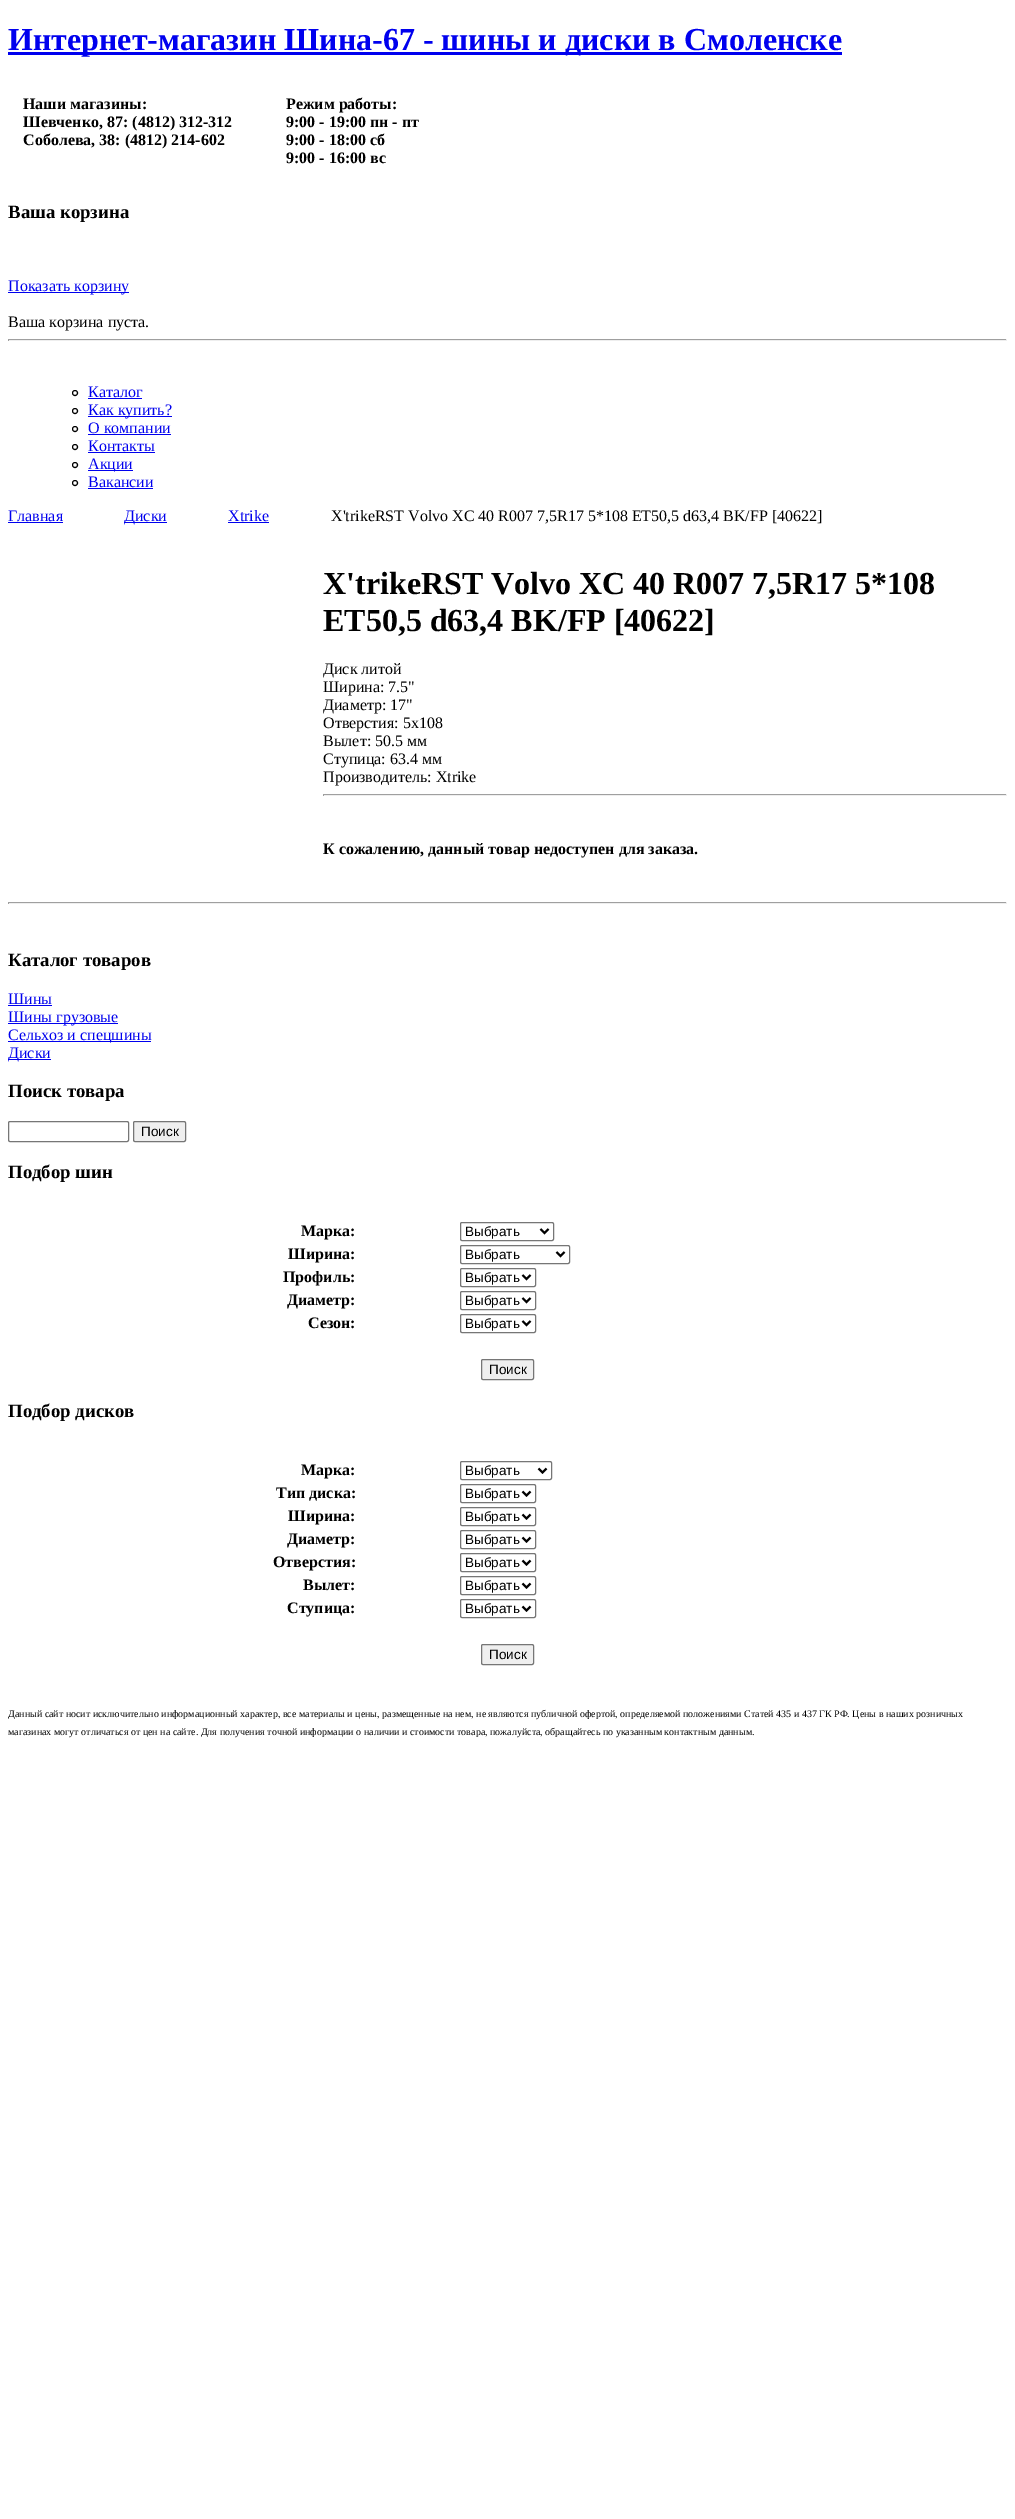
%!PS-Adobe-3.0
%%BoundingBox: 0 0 1015 2519
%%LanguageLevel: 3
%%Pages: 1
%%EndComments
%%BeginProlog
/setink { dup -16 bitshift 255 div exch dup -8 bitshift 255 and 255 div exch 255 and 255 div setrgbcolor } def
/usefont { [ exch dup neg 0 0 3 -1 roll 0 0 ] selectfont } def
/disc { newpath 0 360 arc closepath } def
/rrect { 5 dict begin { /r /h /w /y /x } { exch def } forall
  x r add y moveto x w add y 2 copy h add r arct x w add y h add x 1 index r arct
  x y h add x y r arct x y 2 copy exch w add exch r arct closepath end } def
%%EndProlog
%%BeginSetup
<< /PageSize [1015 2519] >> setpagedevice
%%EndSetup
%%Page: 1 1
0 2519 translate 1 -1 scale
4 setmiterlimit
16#FFFFFF setink
0 0 1015 2519 rectfill
16#0000EE setink
8 52 834 3 rectfill
/LiberationSerif-Bold 32 usefont
8 50 moveto (Интернет-магазин Шина-67 - шины и диски в Смоленске) show
/LiberationSerif-Bold 16 usefont
16#000000 setink
[
    [(Наши магазины:) 23 109]
    [(Шевченко, 87: \(4812\) 312-312) 23 127]
    [(Соболева, 38: \(4812\) 214-602) 23 145]
    [(Режим работы:) 286 109]
    [(9:00 - 19:00 пн - пт) 286 127]
    [(9:00 - 18:00 сб) 286 145]
    [(9:00 - 16:00 вс) 286 163]
] { aload pop moveto show } forall
/LiberationSerif-Bold 18.75 usefont
8 218 moveto (Ваша корзина) show
16#0000EE setink
8 292 121 1 rectfill
/LiberationSerif-Regular 16 usefont
8 291 moveto (Показать корзину) show
16#000000 setink
8 327 moveto (Ваша корзина пуста.) show
[
    [8 339 999 1 16#9F9F9F]
    [1006 339 1 2 16#EEEEEE]
    [8 340 999 1 16#EEEEEE]
    [8 339 1 2 16#9F9F9F]
] { aload pop setink rectfill } forall
16#000000 setink
75 393 2.5 disc stroke
16#0000EE setink
88 397 moveto (Каталог) show
88 398 54 1 rectfill
16#000000 setink
75 411 2.5 disc stroke
16#0000EE setink
88 416 84 1 rectfill
88 415 moveto (Как купить?) show
16#000000 setink
75 429 2.5 disc stroke
16#0000EE setink
88 433 moveto (О компании) show
88 434 83 1 rectfill
16#000000 setink
75 447 2.5 disc stroke
16#0000EE setink
88 451 moveto (Контакты) show
88 452 67 1 rectfill
16#000000 setink
75 465 2.5 disc stroke
16#0000EE setink
88 470 45 1 rectfill
88 469 moveto (Акции) show
16#000000 setink
75 483 2.5 disc stroke
16#0000EE setink
88 487 moveto (Вакансии) show
88 488 65 1 rectfill
8 521 moveto (Главная) show
8 522 55 1 rectfill
124 522 43 1 rectfill
124 521 moveto (Диски) show
228 521 moveto (Xtrike) show
228 522 41 1 rectfill
16#000000 setink
331 521 moveto (X'trikeRST Volvo XC 40 R007 7,5R17 5*108 ET50,5 d63,4 BK/FP [40622]) show
/LiberationSerif-Bold 32 usefont
323 594 moveto (X'trikeRST Volvo XC 40 R007 7,5R17 5*108) show
323 631 moveto (ET50,5 d63,4 BK/FP [40622]) show
/LiberationSerif-Regular 16 usefont
[
    [(Диск литой) 323 674]
    [(Ширина: 7.5") 323 692]
    [(Диаметр: 17") 323 710]
    [(Отверстия: 5x108) 323 728]
    [(Вылет: 50.5 мм) 323 746]
    [(Ступица: 63.4 мм) 323 764]
    [(Производитель: Xtrike) 323 782]
] { aload pop moveto show } forall
[
    [323 794 684 1 16#9F9F9F]
    [1006 794 1 2 16#EEEEEE]
    [323 795 684 1 16#EEEEEE]
    [323 794 1 2 16#9F9F9F]
] { aload pop setink rectfill } forall
/LiberationSerif-Bold 16 usefont
16#000000 setink
323 854 moveto (К сожалению, данный товар недоступен для заказа.) show
[
    [8 902 999 1 16#9F9F9F]
    [1006 902 1 2 16#EEEEEE]
    [8 903 999 1 16#EEEEEE]
    [8 902 1 2 16#9F9F9F]
] { aload pop setink rectfill } forall
/LiberationSerif-Bold 18.75 usefont
16#000000 setink
8 966 moveto (Каталог товаров) show
/LiberationSerif-Regular 16 usefont
16#0000EE setink
8 1004 moveto (Шины) show
8 1005 44 1 rectfill
8 1023 110 1 rectfill
8 1022 moveto (Шины грузовые) show
8 1041 143 1 rectfill
8 1040 moveto (Сельхоз и спецшины) show
8 1059 43 1 rectfill
8 1058 moveto (Диски) show
/LiberationSerif-Bold 18.75 usefont
16#000000 setink
8 1097 moveto (Поиск товара) show
16#767676 setink
8.5 1121.5 120 20 1.5 rrect stroke
16#EFEFEF setink
133.5 1121.5 52 20 1.5 rrect gsave fill grestore
16#767676 setink
stroke
/LiberationSans-Regular 13.5 usefont
16#000000 setink
141 1136 moveto (Поиск) show
/LiberationSerif-Bold 18.75 usefont
8 1178 moveto (Подбор шин) show
/LiberationSerif-Bold 16 usefont
301 1236 moveto (Марка:) show
16#767676 setink
460.5 1222.5 93 18 1.5 rrect stroke
16#000000 setink
2 setlinewidth
540.5 1229 moveto 544.5 1233 lineto 548.5 1229 lineto stroke
/LiberationSans-Regular 13.5 usefont
465 1236 moveto (Выбрать) show
/LiberationSerif-Bold 16 usefont
288 1259 moveto (Ширина:) show
16#767676 setink
1 setlinewidth
460.5 1245.5 109 18 1.5 rrect stroke
16#000000 setink
2 setlinewidth
556.5 1252 moveto 560.5 1256 lineto 564.5 1252 lineto stroke
/LiberationSans-Regular 13.5 usefont
465 1259 moveto (Выбрать) show
/LiberationSerif-Bold 16 usefont
283 1282 moveto (Профиль:) show
16#767676 setink
1 setlinewidth
460.5 1268.5 75 18 1.5 rrect stroke
16#000000 setink
2 setlinewidth
522.5 1275 moveto 526.5 1279 lineto 530.5 1275 lineto stroke
/LiberationSans-Regular 13.5 usefont
465 1282 moveto (Выбрать) show
/LiberationSerif-Bold 16 usefont
287 1305 moveto (Диаметр:) show
16#767676 setink
1 setlinewidth
460.5 1291.5 75 18 1.5 rrect stroke
16#000000 setink
2 setlinewidth
522.5 1298 moveto 526.5 1302 lineto 530.5 1298 lineto stroke
/LiberationSans-Regular 13.5 usefont
465 1305 moveto (Выбрать) show
/LiberationSerif-Bold 16 usefont
308 1328 moveto (Сезон:) show
16#767676 setink
1 setlinewidth
460.5 1314.5 75 18 1.5 rrect stroke
16#000000 setink
2 setlinewidth
522.5 1321 moveto 526.5 1325 lineto 530.5 1321 lineto stroke
/LiberationSans-Regular 13.5 usefont
465 1328 moveto (Выбрать) show
16#EFEFEF setink
481.5 1359.5 52 20 1.5 rrect gsave fill grestore
16#767676 setink
1 setlinewidth
stroke
16#000000 setink
489 1374 moveto (Поиск) show
/LiberationSerif-Bold 18.75 usefont
8 1417 moveto (Подбор дисков) show
/LiberationSerif-Bold 16 usefont
301 1475 moveto (Марка:) show
16#767676 setink
460.5 1461.5 91 18 1.5 rrect stroke
16#000000 setink
2 setlinewidth
538.5 1468.5 moveto 542.5 1472.5 lineto 546.5 1468.5 lineto stroke
/LiberationSans-Regular 13.5 usefont
465 1475 moveto (Выбрать) show
/LiberationSerif-Bold 16 usefont
276 1498 moveto (Тип диска:) show
16#767676 setink
1 setlinewidth
460.5 1484.5 75 18 1.5 rrect stroke
16#000000 setink
2 setlinewidth
522.5 1491.5 moveto 526.5 1495.5 lineto 530.5 1491.5 lineto stroke
/LiberationSans-Regular 13.5 usefont
465 1498 moveto (Выбрать) show
/LiberationSerif-Bold 16 usefont
288 1521 moveto (Ширина:) show
16#767676 setink
1 setlinewidth
460.5 1507.5 75 18 1.5 rrect stroke
16#000000 setink
2 setlinewidth
522.5 1514.5 moveto 526.5 1518.5 lineto 530.5 1514.5 lineto stroke
/LiberationSans-Regular 13.5 usefont
465 1521 moveto (Выбрать) show
/LiberationSerif-Bold 16 usefont
287 1544 moveto (Диаметр:) show
16#767676 setink
1 setlinewidth
460.5 1530.5 75 18 1.5 rrect stroke
16#000000 setink
2 setlinewidth
522.5 1537.5 moveto 526.5 1541.5 lineto 530.5 1537.5 lineto stroke
/LiberationSans-Regular 13.5 usefont
465 1544 moveto (Выбрать) show
/LiberationSerif-Bold 16 usefont
273 1567 moveto (Отверстия:) show
16#767676 setink
1 setlinewidth
460.5 1553.5 75 18 1.5 rrect stroke
16#000000 setink
2 setlinewidth
522.5 1560.5 moveto 526.5 1564.5 lineto 530.5 1560.5 lineto stroke
/LiberationSans-Regular 13.5 usefont
465 1567 moveto (Выбрать) show
/LiberationSerif-Bold 16 usefont
303 1590 moveto (Вылет:) show
16#767676 setink
1 setlinewidth
460.5 1576.5 75 18 1.5 rrect stroke
16#000000 setink
2 setlinewidth
522.5 1583.5 moveto 526.5 1587.5 lineto 530.5 1583.5 lineto stroke
/LiberationSans-Regular 13.5 usefont
465 1590 moveto (Выбрать) show
/LiberationSerif-Bold 16 usefont
287 1613 moveto (Ступица:) show
16#767676 setink
1 setlinewidth
460.5 1599.5 75 18 1.5 rrect stroke
16#000000 setink
2 setlinewidth
522.5 1606.5 moveto 526.5 1610.5 lineto 530.5 1606.5 lineto stroke
/LiberationSans-Regular 13.5 usefont
465 1613 moveto (Выбрать) show
16#EFEFEF setink
481.5 1644.5 52 20 1.5 rrect gsave fill grestore
16#767676 setink
1 setlinewidth
stroke
16#000000 setink
489 1659 moveto (Поиск) show
/LiberationSerif-Regular 10 usefont
8 1717 moveto (Данный сайт носит исключительно информационный характер, все материалы и цены, размещенные на нем, не являются публичной офертой, определяемой положениями Статей 435 и 437 ГК РФ. Цены в наших розничных) show
8 1735 moveto (магазинах могут отличаться от цен на сайте. Для получения точной информации о наличии и стоимости товара, пожалуйста, обращайтесь по указанным контактным данным.) show
showpage
%%EOF
